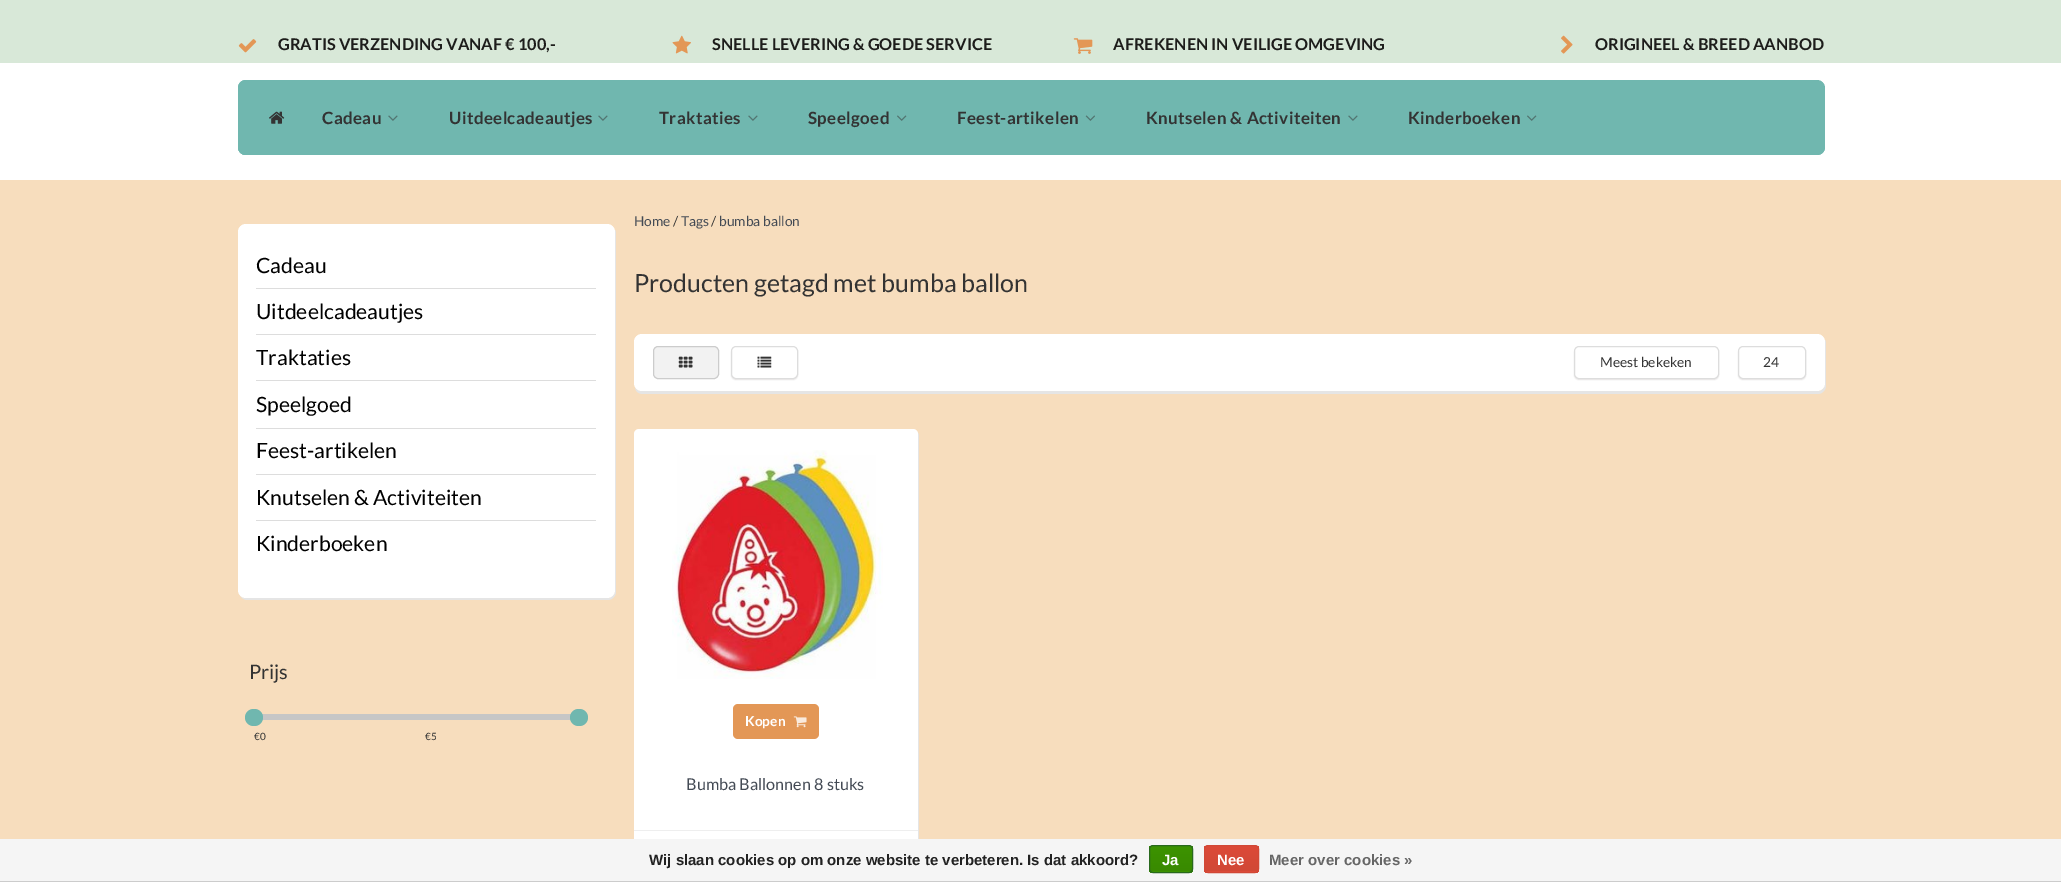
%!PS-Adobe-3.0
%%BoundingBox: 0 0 2061 882
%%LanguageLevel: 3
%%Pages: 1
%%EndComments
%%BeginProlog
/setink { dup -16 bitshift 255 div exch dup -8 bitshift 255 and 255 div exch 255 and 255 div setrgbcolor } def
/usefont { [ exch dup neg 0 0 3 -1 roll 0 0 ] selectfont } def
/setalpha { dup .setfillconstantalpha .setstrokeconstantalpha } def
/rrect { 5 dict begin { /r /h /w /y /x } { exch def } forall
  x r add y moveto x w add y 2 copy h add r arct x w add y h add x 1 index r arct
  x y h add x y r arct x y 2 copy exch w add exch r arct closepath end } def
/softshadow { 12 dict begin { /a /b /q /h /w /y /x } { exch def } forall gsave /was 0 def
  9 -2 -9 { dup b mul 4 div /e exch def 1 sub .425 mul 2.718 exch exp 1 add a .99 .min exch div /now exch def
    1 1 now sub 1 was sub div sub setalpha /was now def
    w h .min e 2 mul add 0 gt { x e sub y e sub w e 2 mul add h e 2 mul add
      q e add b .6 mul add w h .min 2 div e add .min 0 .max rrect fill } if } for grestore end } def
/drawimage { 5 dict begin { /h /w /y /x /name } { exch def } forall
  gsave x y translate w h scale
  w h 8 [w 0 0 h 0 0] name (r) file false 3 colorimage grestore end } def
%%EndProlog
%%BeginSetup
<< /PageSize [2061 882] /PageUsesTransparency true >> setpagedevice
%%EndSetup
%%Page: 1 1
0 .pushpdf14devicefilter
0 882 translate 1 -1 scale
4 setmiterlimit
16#F7DDBD setink
0 0 2061 882 rectfill
16#D8E8D8 setink
0 0 2061 63 rectfill
(img1.raw) 238 39 19 14 drawimage
/Lato-Bold 16.25 usefont
16#1D1D1B setink
278 50 moveto (GRATIS VERZENDING VANAF € 100,-) show
(img2.raw) 672 35 19 19 drawimage
712 50 moveto (SNELLE LEVERING & GOEDE SERVICE) show
(img3.raw) 1073 38 20 16 drawimage
1113 50 moveto (AFREKENEN IN VEILIGE OMGEVING) show
(img4.raw) 1561 35 12 19 drawimage
1595 50 moveto (ORIGINEEL & BREED AANBOD) show
16#FFFFFF setink
0 63 2061 117 rectfill
16#70B7AF setink
238 80 1587 75 8 rrect fill
246 80 moveto 303 80 lineto 303 155 lineto 246 155 lineto 241.5 155 238 151.5 238 147 curveto 238 88 lineto 238 83.5 241.5 80 246 80 curveto closepath fill
(img5.raw) 269 111 16 13 drawimage
/Lato-Bold 16.9 usefont
16#333333 setink
322 124 moveto 0.4 0 (Cadeau) ashow
(img6.raw) 388 115 10 6 drawimage
449 124 moveto 0.4 0 (Uitdeelcadeautjes) ashow
(img6.raw) 598 115 10 6 drawimage
659 124 moveto 0.4 0 (Traktaties) ashow
(img6.raw) 748 115 10 6 drawimage
808 124 moveto 0.4 0 (Speelgoed) ashow
(img7.raw) 897 115 10 6 drawimage
957 124 moveto 0.4 0 (Feest-artikelen) ashow
(img8.raw) 1085 115 10 6 drawimage
1146 124 moveto 0.4 0 (Knutselen & Activiteiten) ashow
(img6.raw) 1348 115 10 6 drawimage
1408 124 moveto 0.4 0 (Kinderboeken) ashow
(img7.raw) 1527 115 10 6 drawimage
16#70B7AF setink
238 143 moveto 1825 143 lineto 1825 147 lineto 1825 151.5 1821.5 155 1817 155 curveto 246 155 lineto 241.5 155 238 151.5 238 147 curveto closepath fill
16#E5E5E5 setink
240 595 moveto 241 598 244 600 247 600 curveto 608 600 lineto 612 600 616 596 616 592 curveto 616 234 lineto 616 233 616 231 615 230 curveto 615 590 lineto 615 594 612 598 608 598 curveto 245 598 lineto 243 598 241 597 240 595 curveto closepath fill
16#FFFFFF setink
238 224 377 374 8 rrect fill
/Lato-Regular 21.1 usefont
16#000000 setink
256 273 moveto (Cadeau) show
16#DDDDDD setink
256 288 340 1 rectfill
16#000000 setink
256 319 moveto (Uitdeelcadeautjes) show
16#DDDDDD setink
256 334 340 1 rectfill
16#000000 setink
256 365 moveto (Traktaties) show
16#DDDDDD setink
256 380 340 1 rectfill
16#000000 setink
256 412 moveto (Speelgoed) show
16#DDDDDD setink
256 428 340 1 rectfill
16#000000 setink
256 458 moveto (Feest-artikelen) show
16#DDDDDD setink
256 474 340 1 rectfill
16#000000 setink
256 505 moveto (Knutselen & Activiteiten) show
16#DDDDDD setink
256 520 340 1 rectfill
16#000000 setink
256 551 moveto (Kinderboeken) show
/Lato-Regular 20 usefont
16#333333 setink
249 679 moveto (Prijs) show
16#C6C6C6 setink
262 714 313 6 rectfill
16#70B7AF setink
245 709 18 17 8.5 rrect fill
570 709 18 17 8.5 rrect fill
/Lato-Regular 10 usefont
16#333333 setink
254 740 moveto (€0) show
425 740 moveto (€5) show
/Lato-Regular 13.75 usefont
16#434A54 setink
634 226 moveto (Home) show
16#333333 setink
673 226 moveto (/) show
16#434A54 setink
681 226 moveto (Tags) show
16#333333 setink
711 226 moveto (/) show
16#434A54 setink
719 226 moveto (bumba ballon) show
/Lato-Regular 25 usefont
16#333333 setink
634 292 moveto (Producten getagd met bumba ballon) show
16#E5E5E5 setink
635 388 moveto 636 392 639 394 643 394 curveto 1818 394 lineto 1822 394 1826 390 1826 386 curveto 1826 344 lineto 1826 343 1826 341 1825 340 curveto 1825 377 lineto 1825 382 1826 391 1818 391 curveto 641 391 lineto 639 391 637 390 635 388 curveto closepath fill
16#FFFFFF setink
634 334 1191 57 8 rrect fill
16#F2F2F2 setink
653.5 346.5 65 32 4.5 rrect gsave fill grestore
16#CCCCCC setink
stroke
(img9.raw) 678 356 15 12 drawimage
16#221919 setink
731 348 67 32 5 0.5 0.1 softshadow
16#FFFFFF setink
731.5 346.5 66 32 4.5 rrect gsave fill grestore
16#DDDDDD setink
stroke
(img10.raw) 757 356 15 12 drawimage
16#221919 setink
1574 348 145 32 5 0.5 0.1 softshadow
16#FFFFFF setink
1574.5 346.5 144 32 4.5 rrect gsave fill grestore
16#DDDDDD setink
stroke
/Lato-Regular 13.75 usefont
16#333333 setink
1600 367 moveto (Meest bekeken) show
16#221919 setink
1738 348 68 32 5 0.5 0.1 softshadow
16#FFFFFF setink
1738.5 346.5 67 32 4.5 rrect gsave fill grestore
16#DDDDDD setink
stroke
16#333333 setink
1763 367 moveto (24) show
16#E5E5E5 setink
635 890 moveto 635 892 637 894 640 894 curveto 914 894 lineto 917 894 919 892 919 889 curveto 919 436 lineto 919 434 918 433 917 432 curveto 918 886 lineto 918 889 915 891 912 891 curveto 639 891 lineto 637 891 636 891 635 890 curveto closepath fill
16#FFFFFF setink
634 429 284 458 5 rrect fill
(img11.raw) 672 450 211 229 drawimage
16#E39756 setink
733 704 86 35 5 rrect fill
/Lato-Bold 13.75 usefont
16#FFFFFF setink
745 726 moveto (Kopen) show
(img12.raw) 793 716 14 12 drawimage
/Lato-Regular 16.25 usefont
16#434A54 setink
686 790 moveto (Bumba Ballonnen 8 stuks) show
[
    [634 830 284 1 16#EEEEEE]
    [0 839 2061 42 16#F5F5F5]
    [0 881 2061 1 16#CCCCCC]
] { aload pop setink rectfill } forall
/LiberationSans-Bold 15 usefont
16#222222 setink
649 865 moveto (Wij slaan cookies op om onze website te verbeteren. Is dat akkoord?) show
gsave
1149 845 44 28 4 rrect clip newpath
gsave 1149 846 moveto 1193 846 lineto 1193 871 lineto 1149 871 lineto closepath clip newpath
<< /ShadingType 2 /ColorSpace /DeviceRGB /Coords [1171 846 1171 871] /Extend [true true] /Function << /FunctionType 2 /Domain [0 1] /C0 [0.235 0.576 0] /C1 [0.224 0.541 0] /N 1 >> >> shfill grestore
gsave 1149 871 moveto 1193 871 lineto 1193 873 lineto 1149 873 lineto closepath clip newpath
<< /ShadingType 2 /ColorSpace /DeviceRGB /Coords [1171 871 1171 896] /Extend [true true] /Function << /FunctionType 2 /Domain [0 1] /C0 [0.235 0.576 0] /C1 [0.224 0.541 0] /N 1 >> >> shfill grestore
grestore
16#29691D setink
1149.5 845.5 43 27 3.5 rrect stroke
16#FFFFFF setink
1162 865 moveto (Ja) show
gsave
1204 845 55 28 4 rrect clip newpath
gsave 1204 846 moveto 1259 846 lineto 1259 871 lineto 1204 871 lineto closepath clip newpath
<< /ShadingType 2 /ColorSpace /DeviceRGB /Coords [1231 846 1231 871] /Extend [true true] /Function << /FunctionType 2 /Domain [0 1] /C0 [0.863 0.29 0.22] /C1 [0.82 0.282 0.212] /N 1 >> >> shfill grestore
gsave 1204 871 moveto 1259 871 lineto 1259 873 lineto 1204 873 lineto closepath clip newpath
<< /ShadingType 2 /ColorSpace /DeviceRGB /Coords [1231 871 1231 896] /Extend [true true] /Function << /FunctionType 2 /Domain [0 1] /C0 [0.863 0.29 0.22] /C1 [0.82 0.282 0.212] /N 1 >> >> shfill grestore
grestore
16#D14836 setink
1204.5 845.5 54 27 3.5 rrect stroke
16#FFFFFF setink
1217 865 moveto (Nee) show
16#666666 setink
1269 865 moveto (Meer over cookies ») show
.poppdf14devicefilter showpage
%%EOF
